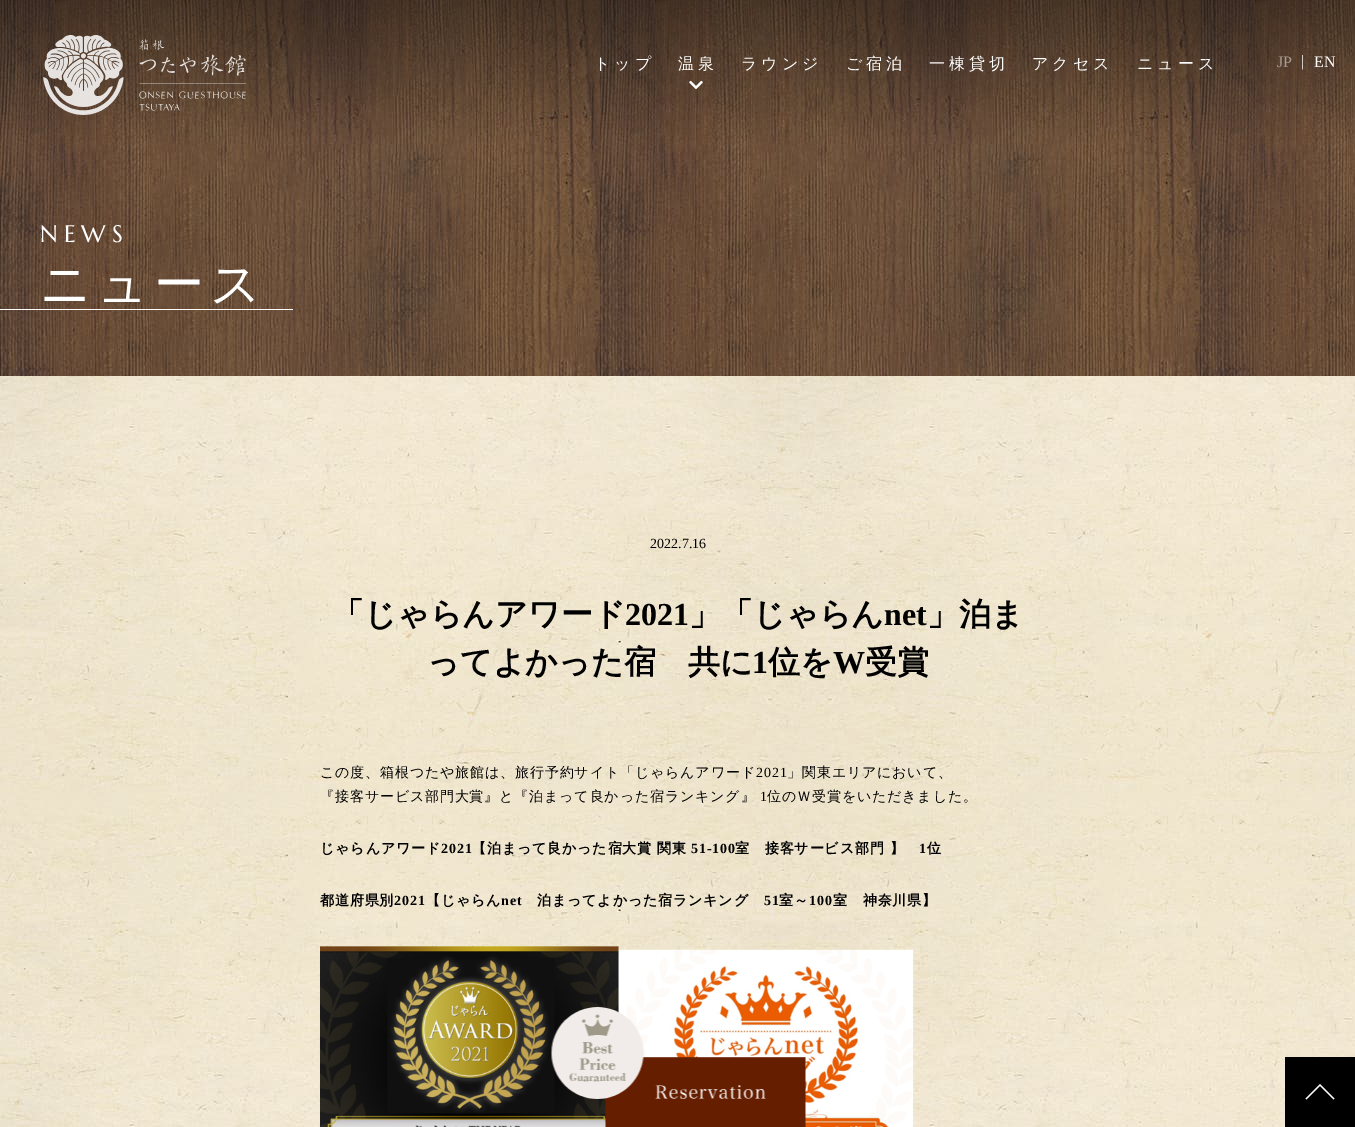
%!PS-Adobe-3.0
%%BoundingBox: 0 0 1355 1127
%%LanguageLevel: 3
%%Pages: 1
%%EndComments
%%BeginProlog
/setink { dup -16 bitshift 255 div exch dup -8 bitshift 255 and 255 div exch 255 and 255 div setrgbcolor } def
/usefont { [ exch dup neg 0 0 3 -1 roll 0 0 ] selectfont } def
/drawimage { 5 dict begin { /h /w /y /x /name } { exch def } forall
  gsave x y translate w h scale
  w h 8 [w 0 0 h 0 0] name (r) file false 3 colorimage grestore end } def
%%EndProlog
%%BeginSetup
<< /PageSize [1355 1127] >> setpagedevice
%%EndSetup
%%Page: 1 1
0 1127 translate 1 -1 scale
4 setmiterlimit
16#FFFFFF setink
0 0 1355 1127 rectfill
(img3.raw) 0 0 1355 376 drawimage
(img1.raw) 43 35 203 80 drawimage
/WenQuanYiZenHei-Medium 16 usefont
594 69 moveto 4 0 (トップ) ashow
678 69 moveto 4 0 (温泉) ashow
(img2.raw) 689 80 14 10 drawimage
741 69 moveto 4 0 (ラウンジ) ashow
846 69 moveto 4 0 (ご宿泊) ashow
929 69 moveto 4 0 (一棟貸切) ashow
1032 69 moveto 4 0 (アクセス) ashow
1137 69 moveto 4 0 (ニュース) ashow
/LiberationSerif-Regular 16 usefont
16#A99D95 setink
1277 67 moveto (JP) show
16#FFFFFF setink
1301 66 moveto (|) show
1314 67 moveto (EN) show
0 309 293 1 rectfill
/Marcellus-Regular 24 usefont
40 242 moveto 6 0 (NEWS) ashow
/WenQuanYiZenHei-Medium 50 usefont
40 301 moveto 6 0 (ニュース) ashow
(img4.raw) 0 376 1355 751 drawimage
/LiberationSerif-Regular 14 usefont
16#000000 setink
650 548 moveto (2022.7.16) show
/WenQuanYiZenHei-Bold 32 usefont
332 625 moveto (「じゃらんアワード) show
/LiberationSerif-Bold 32 usefont
625 625 moveto (2021) show
/WenQuanYiZenHei-Bold 32 usefont
689 625 moveto (」「じゃらん) show
/LiberationSerif-Bold 32 usefont
884 625 moveto (net) show
/WenQuanYiZenHei-Bold 32 usefont
927 625 moveto (」泊ま) show
427 673 moveto (ってよかった宿　共に) show
/LiberationSerif-Bold 32 usefont
752 673 moveto (1) show
/WenQuanYiZenHei-Bold 32 usefont
768 673 moveto (位を) show
/LiberationSerif-Bold 32 usefont
833 673 moveto (W) show
/WenQuanYiZenHei-Bold 32 usefont
865 673 moveto (受賞) show
/WenQuanYiZenHei-Medium 14 usefont
320 777 moveto 0.85 0 (この度、箱根つたや旅館は、旅行予約サイト「じゃらんアワード) ashow
/LiberationSerif-Regular 14 usefont
756 777 moveto 0.85 0 (2021) ashow
/WenQuanYiZenHei-Medium 14 usefont
787 777 moveto 0.85 0 (」関東エリアにおいて、) ashow
320 801 moveto 0.85 0 (『接客サービス部門大賞』と『泊まって良かった宿ランキング』) ashow
/LiberationSerif-Regular 14 usefont
760 801 moveto 0.85 0 (1) ashow
/WenQuanYiZenHei-Medium 14 usefont
767 801 moveto 0.85 0 (位のＷ受賞をいただきました。) ashow
/WenQuanYiZenHei-Bold 14 usefont
320 853 moveto 0.85 0 (じゃらんアワード) ashow
/LiberationSerif-Bold 14 usefont
441 853 moveto 0.85 0 (2021) ashow
/WenQuanYiZenHei-Bold 14 usefont
472 853 moveto 0.85 0 (【泊まって良かった宿大賞 関東) ashow
/LiberationSerif-Bold 14 usefont
691 853 moveto 0.85 0 (51-100) ashow
/WenQuanYiZenHei-Bold 14 usefont
735 853 moveto 0.85 0 (室　接客サービス部門 】) ashow
/LiberationSerif-Bold 14 usefont
919 853 moveto 0.85 0 (1) ashow
/WenQuanYiZenHei-Bold 14 usefont
927 853 moveto 0.85 0 (位) ashow
320 905 moveto 0.85 0 (都道府県別) ashow
/LiberationSerif-Bold 14 usefont
394 905 moveto 0.85 0 (2021) ashow
/WenQuanYiZenHei-Bold 14 usefont
426 905 moveto 0.85 0 (【じゃらん) ashow
/LiberationSerif-Bold 14 usefont
501 905 moveto 0.85 0 (net) ashow
/WenQuanYiZenHei-Bold 14 usefont
537 905 moveto 0.85 0 (泊まってよかった宿ランキング) ashow
/LiberationSerif-Bold 14 usefont
764 905 moveto 0.85 0 (51) ashow
/WenQuanYiZenHei-Bold 14 usefont
779 905 moveto 0.85 0 (室～) ashow
/LiberationSerif-Bold 14 usefont
809 905 moveto 0.85 0 (100) ashow
/WenQuanYiZenHei-Bold 14 usefont
833 905 moveto 0.85 0 (室　神奈川県】) ashow
(img5.raw) 320 946 594 181 drawimage
(img6.raw) 551 1007 255 120 drawimage
1285 1057 70 70 rectfill
16#FFFFFF setink
1.4 setlinewidth
1306 1099 moveto 1320 1085 lineto 1334 1099 lineto stroke
showpage
%%EOF
